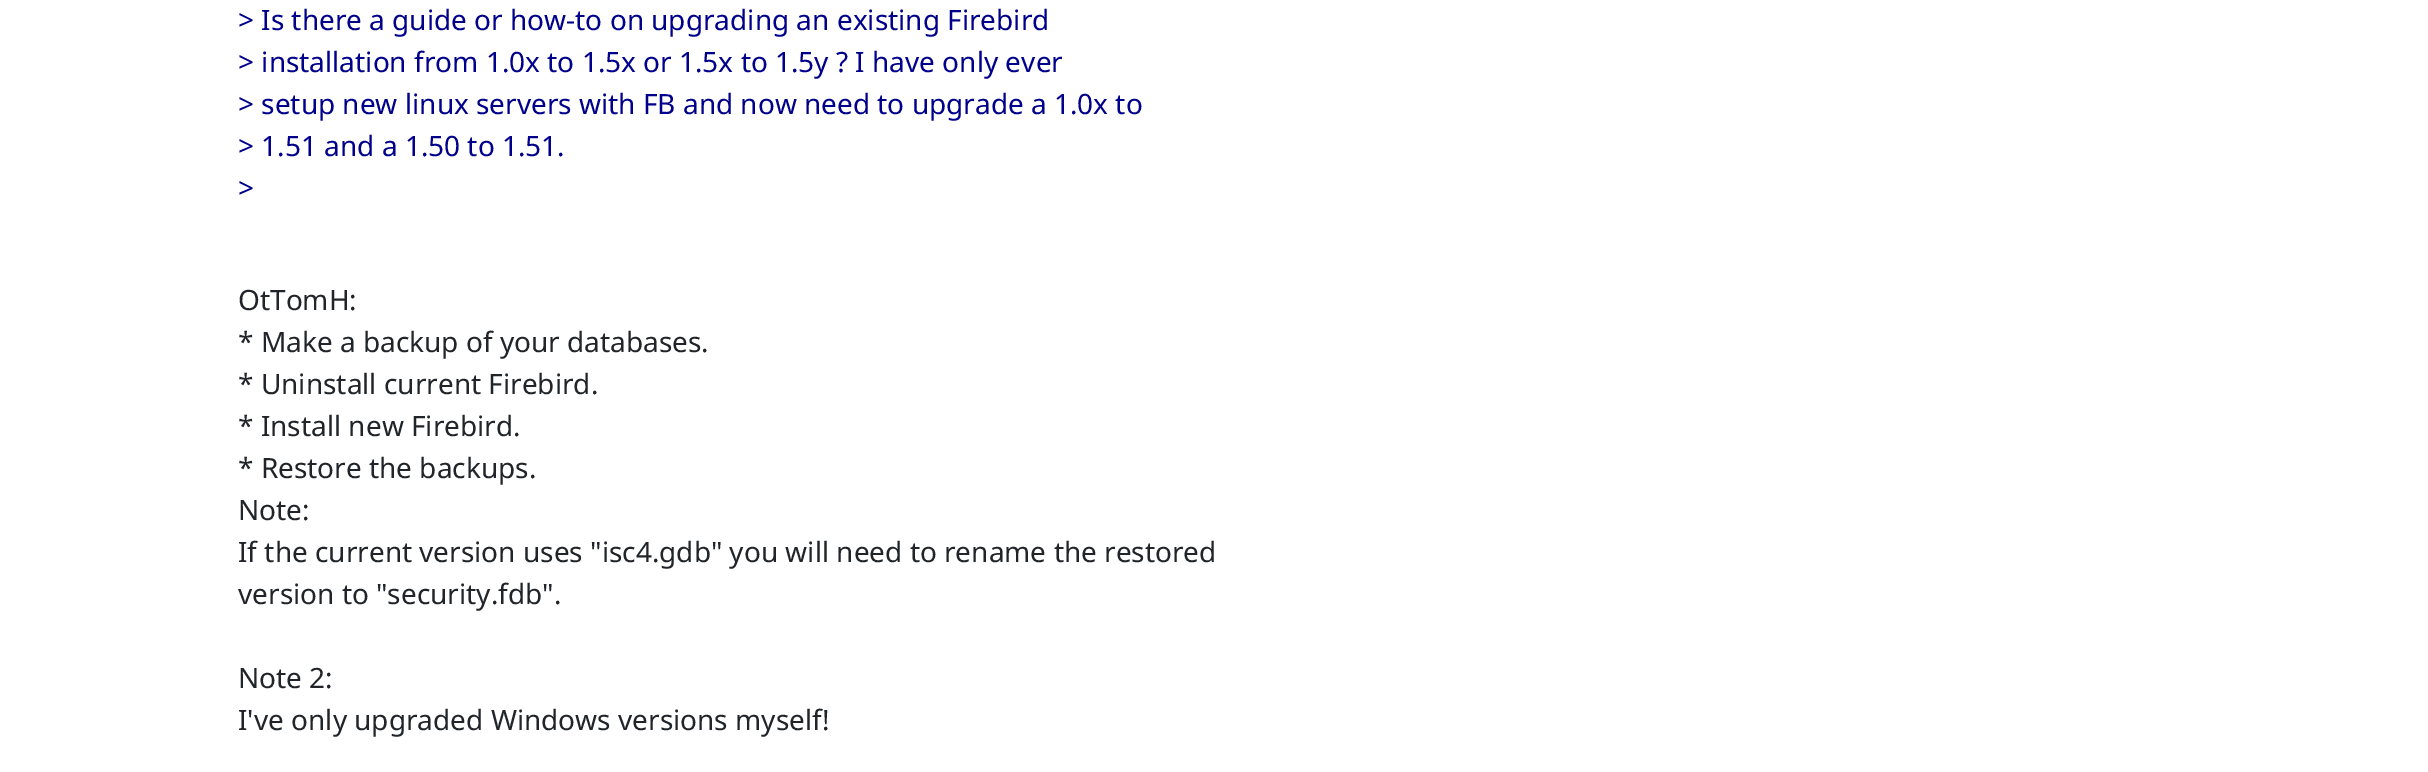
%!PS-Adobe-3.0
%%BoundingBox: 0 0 2428 772
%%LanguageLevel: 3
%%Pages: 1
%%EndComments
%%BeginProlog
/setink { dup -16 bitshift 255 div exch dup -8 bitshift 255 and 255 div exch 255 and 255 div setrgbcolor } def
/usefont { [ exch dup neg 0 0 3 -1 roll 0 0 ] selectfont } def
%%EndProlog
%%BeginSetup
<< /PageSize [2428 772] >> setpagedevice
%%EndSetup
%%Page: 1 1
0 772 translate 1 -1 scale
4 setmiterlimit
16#FFFFFF setink
0 0 2428 772 rectfill
/NotoSans-Regular 28 usefont
16#00008B setink
[
    [(> Is there a guide or how-to on upgrading an existing Firebird) 238 30]
    [(> installation from 1.0x to 1.5x or 1.5x to 1.5y ? I have only ever) 238 72]
    [(> setup new linux servers with FB and now need to upgrade a 1.0x to) 238 114]
    [(> 1.51 and a 1.50 to 1.51.) 238 156]
    [(>) 238 198]
] { aload pop moveto show } forall
16#212529 setink
[
    [(OtTomH:) 238 310]
    [(* Make a backup of your databases.) 238 352]
    [(* Uninstall current Firebird.) 238 394]
    [(* Install new Firebird.) 238 436]
    [(* Restore the backups.) 238 478]
    [(Note:) 238 520]
    [(If the current version uses "isc4.gdb" you will need to rename the restored) 238 562]
    [(version to "security.fdb".) 238 604]
    [(Note 2:) 238 688]
    [(I've only upgraded Windows versions myself!) 238 730]
] { aload pop moveto show } forall
showpage
%%EOF
